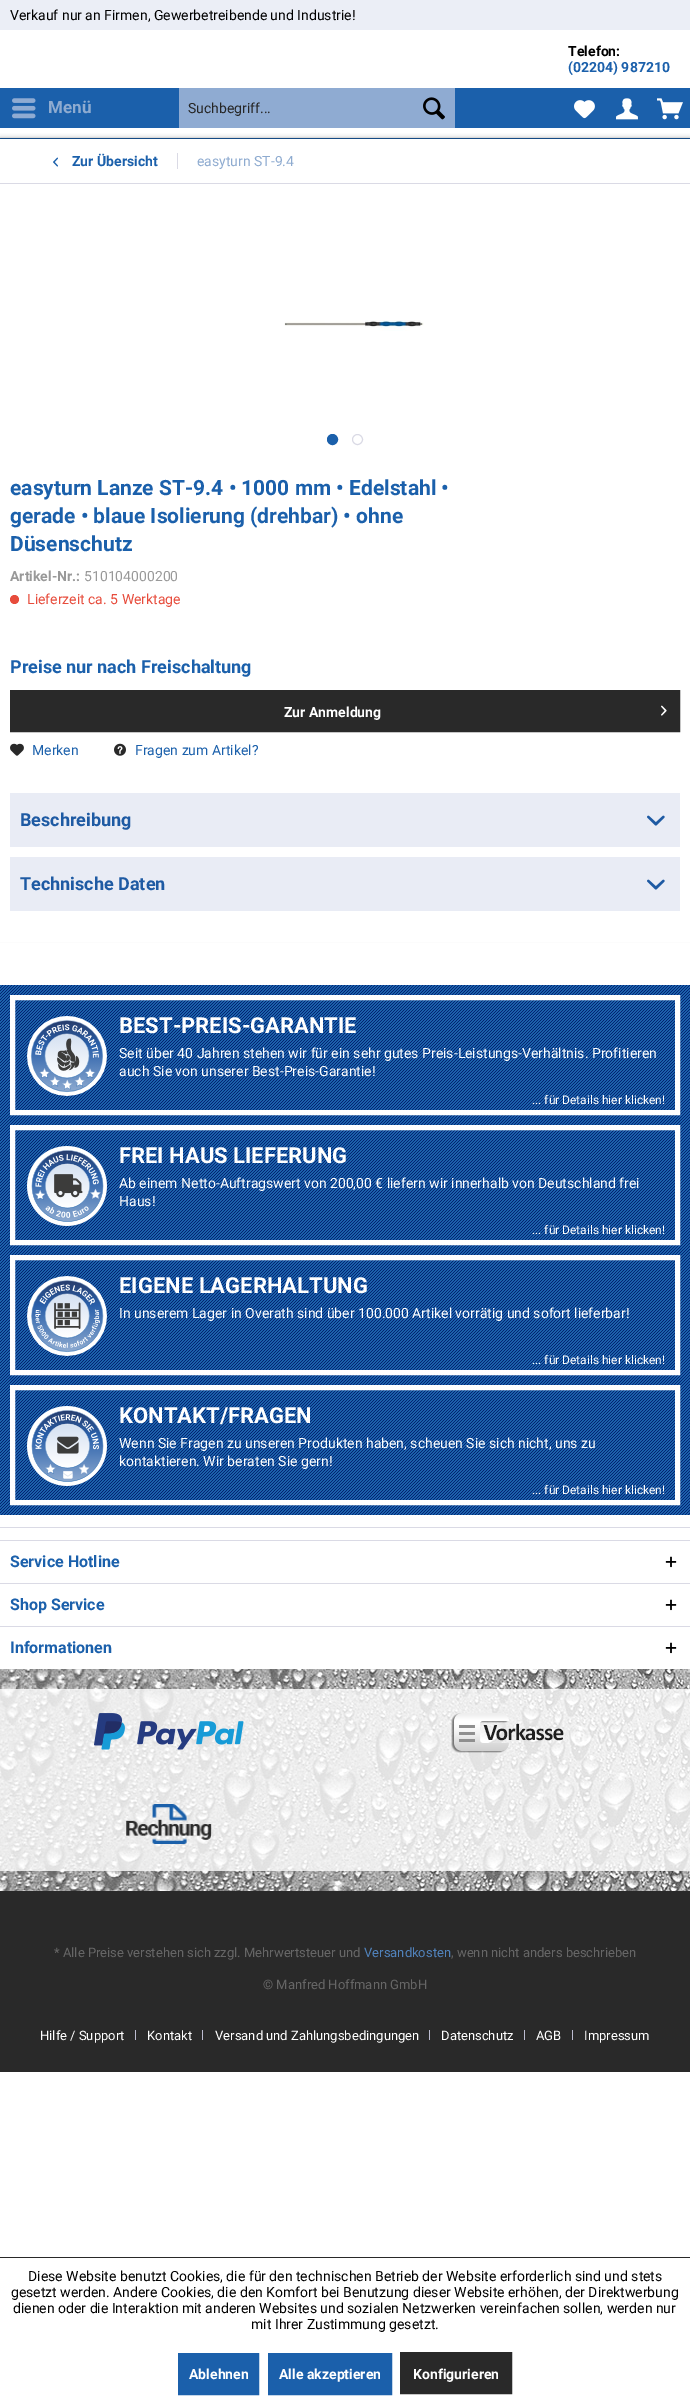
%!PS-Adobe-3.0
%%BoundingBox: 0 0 690 2405
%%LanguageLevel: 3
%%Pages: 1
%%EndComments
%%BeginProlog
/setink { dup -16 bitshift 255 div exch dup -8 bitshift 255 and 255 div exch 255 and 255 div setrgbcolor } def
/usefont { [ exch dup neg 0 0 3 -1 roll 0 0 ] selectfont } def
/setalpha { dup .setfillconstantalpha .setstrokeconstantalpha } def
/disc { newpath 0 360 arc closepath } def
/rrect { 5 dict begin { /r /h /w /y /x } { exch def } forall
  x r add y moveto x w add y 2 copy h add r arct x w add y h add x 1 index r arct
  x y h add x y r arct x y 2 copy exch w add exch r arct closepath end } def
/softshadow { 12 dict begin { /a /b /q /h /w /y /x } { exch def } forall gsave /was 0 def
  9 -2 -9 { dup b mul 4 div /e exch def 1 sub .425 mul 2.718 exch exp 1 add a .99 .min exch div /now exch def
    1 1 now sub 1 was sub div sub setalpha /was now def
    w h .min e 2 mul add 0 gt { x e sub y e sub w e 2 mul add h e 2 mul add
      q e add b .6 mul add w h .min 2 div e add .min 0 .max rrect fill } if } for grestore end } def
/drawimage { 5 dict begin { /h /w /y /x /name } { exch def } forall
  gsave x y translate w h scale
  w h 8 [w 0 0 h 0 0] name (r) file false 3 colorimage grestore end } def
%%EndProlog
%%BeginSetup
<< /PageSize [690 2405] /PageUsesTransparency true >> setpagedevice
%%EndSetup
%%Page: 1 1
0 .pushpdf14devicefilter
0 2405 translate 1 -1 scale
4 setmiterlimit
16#FFFFFF setink
0 0 690 2405 rectfill
16#EBEEF6 setink
0 0 690 30 rectfill
/Roboto-Regular 14 usefont
16#000000 setink
10 20 moveto (Verkauf nur an Firmen, Gewerbetreibende und Industrie!) show
16#1B60AB setink
0 138 690 1 rectfill
/Roboto-Bold 14 usefont
16#000000 setink
568 56 moveto (Telefon:) show
16#1B60AB setink
568 72 moveto (\(02204\) 987210) show
0 88 690 40 rectfill
(img1.raw) 12 98 24 21 drawimage
/Roboto-Bold 17 usefont
16#8EABD0 setink
48 113 moveto (Menü) show
16#8FABD2 setink
179 88 276 40 rectfill
/Roboto-Regular 14 usefont
16#262626 setink
188 113 moveto (Suchbegriff...) show
(img2.raw) 423 97 22 23 drawimage
(img3.raw) 574 100 21 19 drawimage
(img4.raw) 616 98 22 22 drawimage
(img5.raw) 657 98 26 22 drawimage
16#000000 setink
0 139 690 798 0 2.5 0.5 softshadow
16#FFFFFF setink
0 139 690 803 rectfill
16#DADAE5 setink
0 183 690 1 rectfill
(img6.raw) 53 157 5 10 drawimage
/Roboto-Bold 14 usefont
16#1B60AB setink
72 166 moveto (Zur Übersicht) show
16#DADAE5 setink
177 153 1 16 rectfill
/Roboto-Regular 14 usefont
16#8EABD0 setink
197 166 moveto (easyturn ST-9.4) show
(img7.raw) 284 320 140 11 drawimage
16#1B60AB setink
332.5 439.5 5 disc gsave fill grestore
stroke
16#DADAE5 setink
357.5 439.5 5 disc stroke
/Roboto-Bold 21 usefont
16#1B60AB setink
[
    [(easyturn Lanze ST-9.4 • 1000 mm • Edelstahl •) 10 495]
    [(gerade • blaue Isolierung \(drehbar\) • ohne) 10 523]
    [(Düsenschutz) 10 551]
] { aload pop moveto show } forall
/Roboto-Bold 14 usefont
16#999999 setink
10 581 moveto (Artikel-Nr.:) show
/Roboto-Regular 14 usefont
84 581 moveto (510104000200) show
16#E74C3C setink
14.5 599.5 4.5 disc fill
27 604 moveto (Lieferzeit ca. 5 Werktage) show
/Roboto-Bold 18 usefont
16#1B60AB setink
10 673 moveto (Preise nur nach Freischaltung) show
16#292929 setink
10.5 690.5 moveto 679.5 690.5 lineto 679.5 731.5 lineto 10.5 731.5 lineto closepath gsave fill grestore
stroke
/Roboto-Bold 14 usefont
16#FFFFFF setink
284 717 moveto (Zur Anmeldung) show
(img8.raw) 661 705 6 11 drawimage
(img9.raw) 10 743 14 13 drawimage
/Roboto-Regular 14 usefont
16#1B60AB setink
32 755 moveto (Merken) show
(img10.raw) 114 743 12 13 drawimage
135 755 moveto (Fragen zum Artikel?) show
16#E9ECF5 setink
10 793 670 54 rectfill
/Roboto-Bold 18 usefont
16#1E5AA3 setink
20 826 moveto (Beschreibung) show
(img11.raw) 647 815 18 11 drawimage
16#E9ECF5 setink
10 857 670 54 rectfill
16#1E5AA3 setink
20 890 moveto (Technische Daten) show
(img11.raw) 647 879 18 11 drawimage
(img12.raw) 0 985 690 530 drawimage
16#FFFFFF setink
5 setlinewidth
12.5 997.5 665 115 rectstroke
(img13.raw) 27 1016 80 80 drawimage
/Roboto-Bold 22 usefont
119 1033 moveto (BEST-PREIS-GARANTIE) show
/Roboto-Regular 14 usefont
119 1058 moveto (Seit über 40 Jahren stehen wir für ein sehr gutes Preis-Leistungs-Verhältnis. Profitieren) show
119 1076 moveto (auch Sie von unserer Best-Preis-Garantie!) show
/Roboto-Regular 12 usefont
532 1104 moveto (... für Details hier klicken!) show
12.5 1127.5 665 115 rectstroke
(img14.raw) 27 1146 80 80 drawimage
/Roboto-Bold 22 usefont
119 1163 moveto (FREI HAUS LIEFERUNG) show
/Roboto-Regular 14 usefont
119 1188 moveto (Ab einem Netto-Auftragswert von 200,00 € liefern wir innerhalb von Deutschland frei) show
119 1206 moveto (Haus!) show
/Roboto-Regular 12 usefont
532 1234 moveto (... für Details hier klicken!) show
12.5 1257.5 665 115 rectstroke
(img15.raw) 27 1276 80 80 drawimage
/Roboto-Bold 22 usefont
119 1293 moveto (EIGENE LAGERHALTUNG) show
/Roboto-Regular 14 usefont
119 1318 moveto (In unserem Lager in Overath sind über 100.000 Artikel vorrätig und sofort lieferbar!) show
/Roboto-Regular 12 usefont
532 1364 moveto (... für Details hier klicken!) show
12.5 1387.5 665 115 rectstroke
(img16.raw) 27 1406 80 80 drawimage
/Roboto-Bold 22 usefont
119 1423 moveto (KONTAKT/FRAGEN) show
/Roboto-Regular 14 usefont
119 1448 moveto (Wenn Sie Fragen zu unseren Produkten haben, scheuen Sie sich nicht, uns zu) show
119 1466 moveto (kontaktieren. Wir beraten Sie gern!) show
/Roboto-Regular 12 usefont
532 1494 moveto (... für Details hier klicken!) show
16#DADAE5 setink
0 1527 690 1 rectfill
0 1540 690 1 rectfill
/Roboto-Bold 16 usefont
16#1B60AB setink
10 1567 moveto (Service Hotline) show
(img17.raw) 665 1556 12 12 drawimage
16#DADAE5 setink
0 1583 690 1 rectfill
16#1B60AB setink
10 1610 moveto (Shop Service) show
(img17.raw) 665 1599 12 12 drawimage
16#DADAE5 setink
0 1626 690 1 rectfill
16#1B60AB setink
10 1653 moveto (Informationen) show
(img17.raw) 665 1642 12 12 drawimage
(img18.raw) 0 1669 690 222 drawimage
0.8 setalpha
16#FFFFFF setink
0 1689 690 182 rectfill
1 setalpha
(img19.raw) 94 1713 150 37 drawimage
(img20.raw) 451 1713 113 40 drawimage
(img21.raw) 126 1804 86 40 drawimage
16#292929 setink
0 1891 690 181 rectfill
/Roboto-Regular 13 usefont
16#666666 setink
54 1957 moveto (* Alle Preise verstehen sich zzgl. Mehrwertsteuer und) show
16#5082BB setink
364 1957 moveto (Versandkosten) show
16#666666 setink
451 1957 moveto (, wenn nicht anders beschrieben) show
263 1989 moveto (© Manfred Hoffmann GmbH) show
16#FFFFFF setink
40 2040 moveto (Hilfe / Support) show
16#BCBCD0 setink
135 2030 1 10 rectfill
16#FFFFFF setink
147 2040 moveto (Kontakt) show
16#BCBCD0 setink
202 2030 1 10 rectfill
16#FFFFFF setink
215 2040 moveto (Versand und Zahlungsbedingungen) show
16#BCBCD0 setink
429 2030 1 10 rectfill
16#FFFFFF setink
441 2040 moveto (Datenschutz) show
16#BCBCD0 setink
524 2030 1 10 rectfill
16#FFFFFF setink
536 2040 moveto (AGB) show
16#BCBCD0 setink
572 2030 1 10 rectfill
16#FFFFFF setink
584 2040 moveto (Impressum) show
16#292929 setink
0 2257 690 1 rectfill
/Roboto-Regular 14 usefont
16#000000 setink
[
    [(Diese Website benutzt Cookies, die für den technischen Betrieb der Website erforderlich sind und stets) 28 2281]
    [(gesetzt werden. Andere Cookies, die den Komfort bei Benutzung dieser Website erhöhen, der Direktwerbung) 11 2297]
    [(dienen oder die Interaktion mit anderen Websites und sozialen Netzwerken vereinfachen sollen, werden nur) 13 2313]
    [(mit Ihrer Zustimmung gesetzt.) 251 2329]
] { aload pop moveto show } forall
16#1B60AB setink
178.5 2353.5 moveto 258.5 2353.5 lineto 258.5 2394.5 lineto 178.5 2394.5 lineto closepath gsave fill grestore
1 setlinewidth
stroke
/Roboto-Bold 14 usefont
16#FFFFFF setink
189 2379 moveto (Ablehnen) show
16#1B60AB setink
268.5 2353.5 moveto 391.5 2353.5 lineto 391.5 2394.5 lineto 268.5 2394.5 lineto closepath gsave fill grestore
stroke
16#FFFFFF setink
279 2379 moveto (Alle akzeptieren) show
16#292929 setink
400.5 2352.5 moveto 511.5 2352.5 lineto 511.5 2393.5 lineto 400.5 2393.5 lineto closepath gsave fill grestore
stroke
16#FFFFFF setink
413 2379 moveto (Konfigurieren) show
.poppdf14devicefilter showpage
%%EOF
